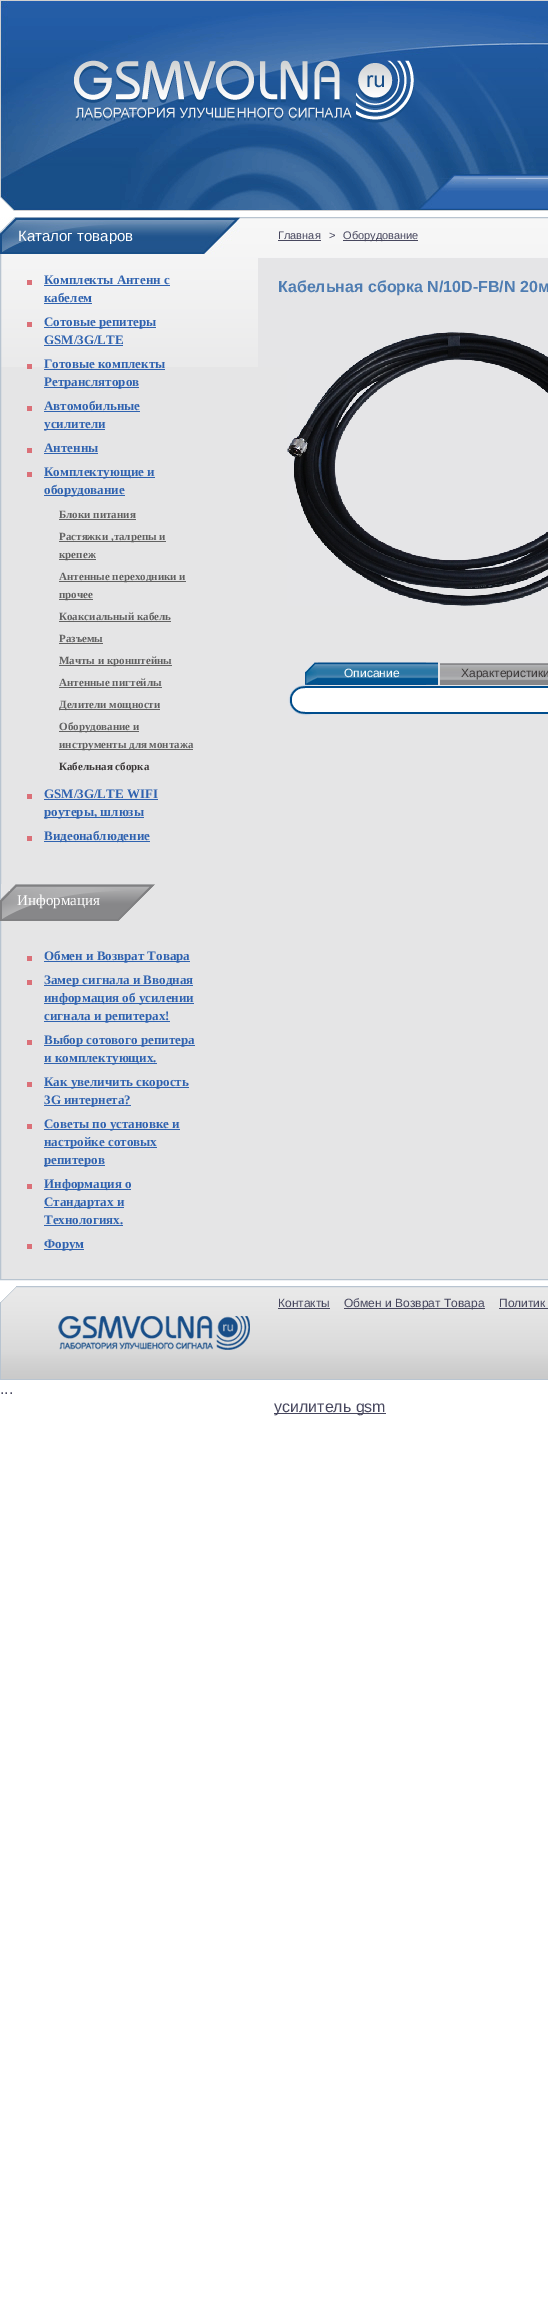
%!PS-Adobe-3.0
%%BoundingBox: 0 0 548 2306
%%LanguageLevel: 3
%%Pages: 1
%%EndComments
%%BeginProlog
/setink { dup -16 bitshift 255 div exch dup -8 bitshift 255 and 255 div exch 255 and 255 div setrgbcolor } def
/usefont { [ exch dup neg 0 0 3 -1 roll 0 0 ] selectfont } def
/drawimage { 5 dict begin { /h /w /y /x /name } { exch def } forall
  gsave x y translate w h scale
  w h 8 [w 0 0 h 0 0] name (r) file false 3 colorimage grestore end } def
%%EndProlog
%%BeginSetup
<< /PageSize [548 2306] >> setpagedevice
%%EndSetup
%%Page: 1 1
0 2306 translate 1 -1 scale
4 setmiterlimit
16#FFFFFF setink
0 0 548 2306 rectfill
(img1.raw) 0 0 548 211 drawimage
(img2.raw) 74 60 340 63 drawimage
16#E5E5E6 setink
1 367 547 912 rectfill
(img3.raw) 1 218 547 149 drawimage
16#B8C4D0 setink
0.5 217.5 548 1062 rectstroke
(img4.raw) 0 217 240 37 drawimage
16#DB7078 setink
27 280 5 5 rectfill
/LiberationSerif-Bold 13 usefont
16#3063B0 setink
44 284 moveto (Комплекты Антенн с) show
44 285 126 1 rectfill
44 302 moveto (кабелем) show
[
    [44 303 48 1 16#3063B0]
    [27 322 5 5 16#DB7078]
    [44 327 112 1 16#3063B0]
] { aload pop setink rectfill } forall
44 326 moveto (Сотовые репитеры) show
44 344 moveto (GSM/3G/LTE) show
44 345 79 1 rectfill
16#DB7078 setink
27 364 5 5 rectfill
16#3063B0 setink
44 368 moveto (Готовые комплекты) show
44 369 121 1 rectfill
44 387 95 1 rectfill
44 386 moveto (Ретрансляторов) show
16#DB7078 setink
27 406 5 5 rectfill
16#3063B0 setink
44 410 moveto (Автомобильные) show
44 411 96 1 rectfill
44 429 61 1 rectfill
44 428 moveto (усилители) show
16#DB7078 setink
27 448 5 5 rectfill
16#3063B0 setink
44 452 moveto (Антенны) show
[
    [44 453 54 1 16#3063B0]
    [27 472 5 5 16#DB7078]
    [44 477 111 1 16#3063B0]
] { aload pop setink rectfill } forall
44 476 moveto (Комплектующие и) show
44 495 81 1 rectfill
44 494 moveto (оборудование) show
/LiberationSerif-Bold 11 usefont
16#626262 setink
59 518 moveto (Блоки питания) show
59 519 77 1 rectfill
59 541 107 1 rectfill
59 540 moveto (Растяжки ,талрепы и) show
59 559 37 1 rectfill
59 558 moveto (крепеж) show
59 581 127 1 rectfill
59 580 moveto (Антенные переходники и) show
59 599 34 1 rectfill
59 598 moveto (прочее) show
59 620 moveto (Коаксиальный кабель) show
59 621 112 1 rectfill
59 642 moveto (Разъемы) show
59 643 44 1 rectfill
59 665 113 1 rectfill
59 664 moveto (Мачты и кронштейны) show
59 686 moveto (Антенные пигтейлы) show
59 687 103 1 rectfill
59 709 101 1 rectfill
59 708 moveto (Делители мощности) show
59 731 80 1 rectfill
59 730 moveto (Оборудование и) show
59 749 134 1 rectfill
59 748 moveto (инструменты для монтажа) show
16#3C3939 setink
59 770 moveto (Кабельная сборка) show
16#DB7078 setink
27 794 5 5 rectfill
/LiberationSerif-Bold 13 usefont
16#3063B0 setink
44 798 moveto (GSM/3G/LTE WIFI) show
44 799 114 1 rectfill
44 817 100 1 rectfill
44 816 moveto (роутеры, шлюзы) show
16#DB7078 setink
27 836 5 5 rectfill
16#3063B0 setink
44 841 106 1 rectfill
44 840 moveto (Видеонаблюдение) show
(img5.raw) 0 884 155 37 drawimage
/LiberationSerif-Regular 15 usefont
16#FFFFFF setink
17 905 moveto (Информация) show
16#DB7078 setink
27 956 5 5 rectfill
16#3063B0 setink
44 961 146 1 rectfill
/LiberationSerif-Bold 13 usefont
44 960 moveto (Обмен и Возврат Товара) show
16#DB7078 setink
27 980 5 5 rectfill
16#3063B0 setink
44 985 149 1 rectfill
44 984 moveto (Замер сигнала и Вводная) show
44 1003 150 1 rectfill
44 1002 moveto (информация об усилении) show
44 1021 126 1 rectfill
44 1020 moveto (сигнала и репитерах!) show
16#DB7078 setink
27 1040 5 5 rectfill
16#3063B0 setink
44 1045 151 1 rectfill
44 1044 moveto (Выбор сотового репитера) show
44 1063 113 1 rectfill
44 1062 moveto (и комплектующих.) show
16#DB7078 setink
27 1082 5 5 rectfill
16#3063B0 setink
44 1087 145 1 rectfill
44 1086 moveto (Как увеличить скорость) show
44 1105 87 1 rectfill
44 1104 moveto (3G интернета?) show
16#DB7078 setink
27 1124 5 5 rectfill
16#3063B0 setink
44 1129 136 1 rectfill
44 1128 moveto (Советы по установке и) show
44 1147 113 1 rectfill
44 1146 moveto (настройке сотовых) show
44 1165 61 1 rectfill
44 1164 moveto (репитеров) show
16#DB7078 setink
27 1184 5 5 rectfill
16#3063B0 setink
44 1189 87 1 rectfill
44 1188 moveto (Информация о) show
44 1207 80 1 rectfill
44 1206 moveto (Стандартах и) show
44 1224 moveto (Технологиях.) show
[
    [44 1225 79 1 16#3063B0]
    [27 1244 5 5 16#DB7078]
    [44 1249 40 1 16#3063B0]
] { aload pop setink rectfill } forall
44 1248 moveto (Форум) show
/LiberationSans-Regular 11 usefont
16#47475E setink
278 239 moveto (Главная) show
278 240 43 1 rectfill
329 239 moveto (>) show
343 240 75 1 rectfill
343 239 moveto (Оборудование) show
16#E5E5E7 setink
258 258 290 109 rectfill
/LiberationSans-Bold 16 usefont
16#4F7DB2 setink
278 292 moveto (Кабельная сборка N/10D-FB/N 20м) show
(img6.raw) 287 332 261 274 drawimage
(img7.raw) 318 684 120 1 drawimage
(img13.raw) 288 684 26 16 drawimage
(img11.raw) 307 684 11 1 drawimage
(img8.raw) 305 662 13 23 drawimage
(img9.raw) 318 662 120 23 drawimage
(img10.raw) 318 662 108 23 drawimage
/LiberationSans-Regular 12 usefont
16#FFFFFF setink
344 677 moveto (Описание) show
(img12.raw) 440 663 108 22 drawimage
16#3C3939 setink
461 677 moveto (Характеристики) show
(img14.raw) 305 686 243 14 drawimage
(img15.raw) 288 700 26 16 drawimage
(img16.raw) 305 700 243 14 drawimage
/LiberationSans-Regular 15 usefont
16#FFFFFF setink
18 241 moveto (Каталог товаров) show
(img17.raw) 0 1286 548 94 drawimage
/LiberationSans-Regular 12 usefont
16#47475E setink
278 1307 moveto (Контакты) show
278 1308 52 1 rectfill
344 1308 141 1 rectfill
344 1307 moveto (Обмен и Возврат Товара) show
499 1307 moveto (Политик) show
499 1308 49 1 rectfill
(img18.raw) 58 1316 192 34 drawimage
/LiberationSans-Regular 16 usefont
0 1394 moveto (...) show
274 1413 112 1 rectfill
274 1412 moveto (усилитель gsm) show
showpage
%%EOF
